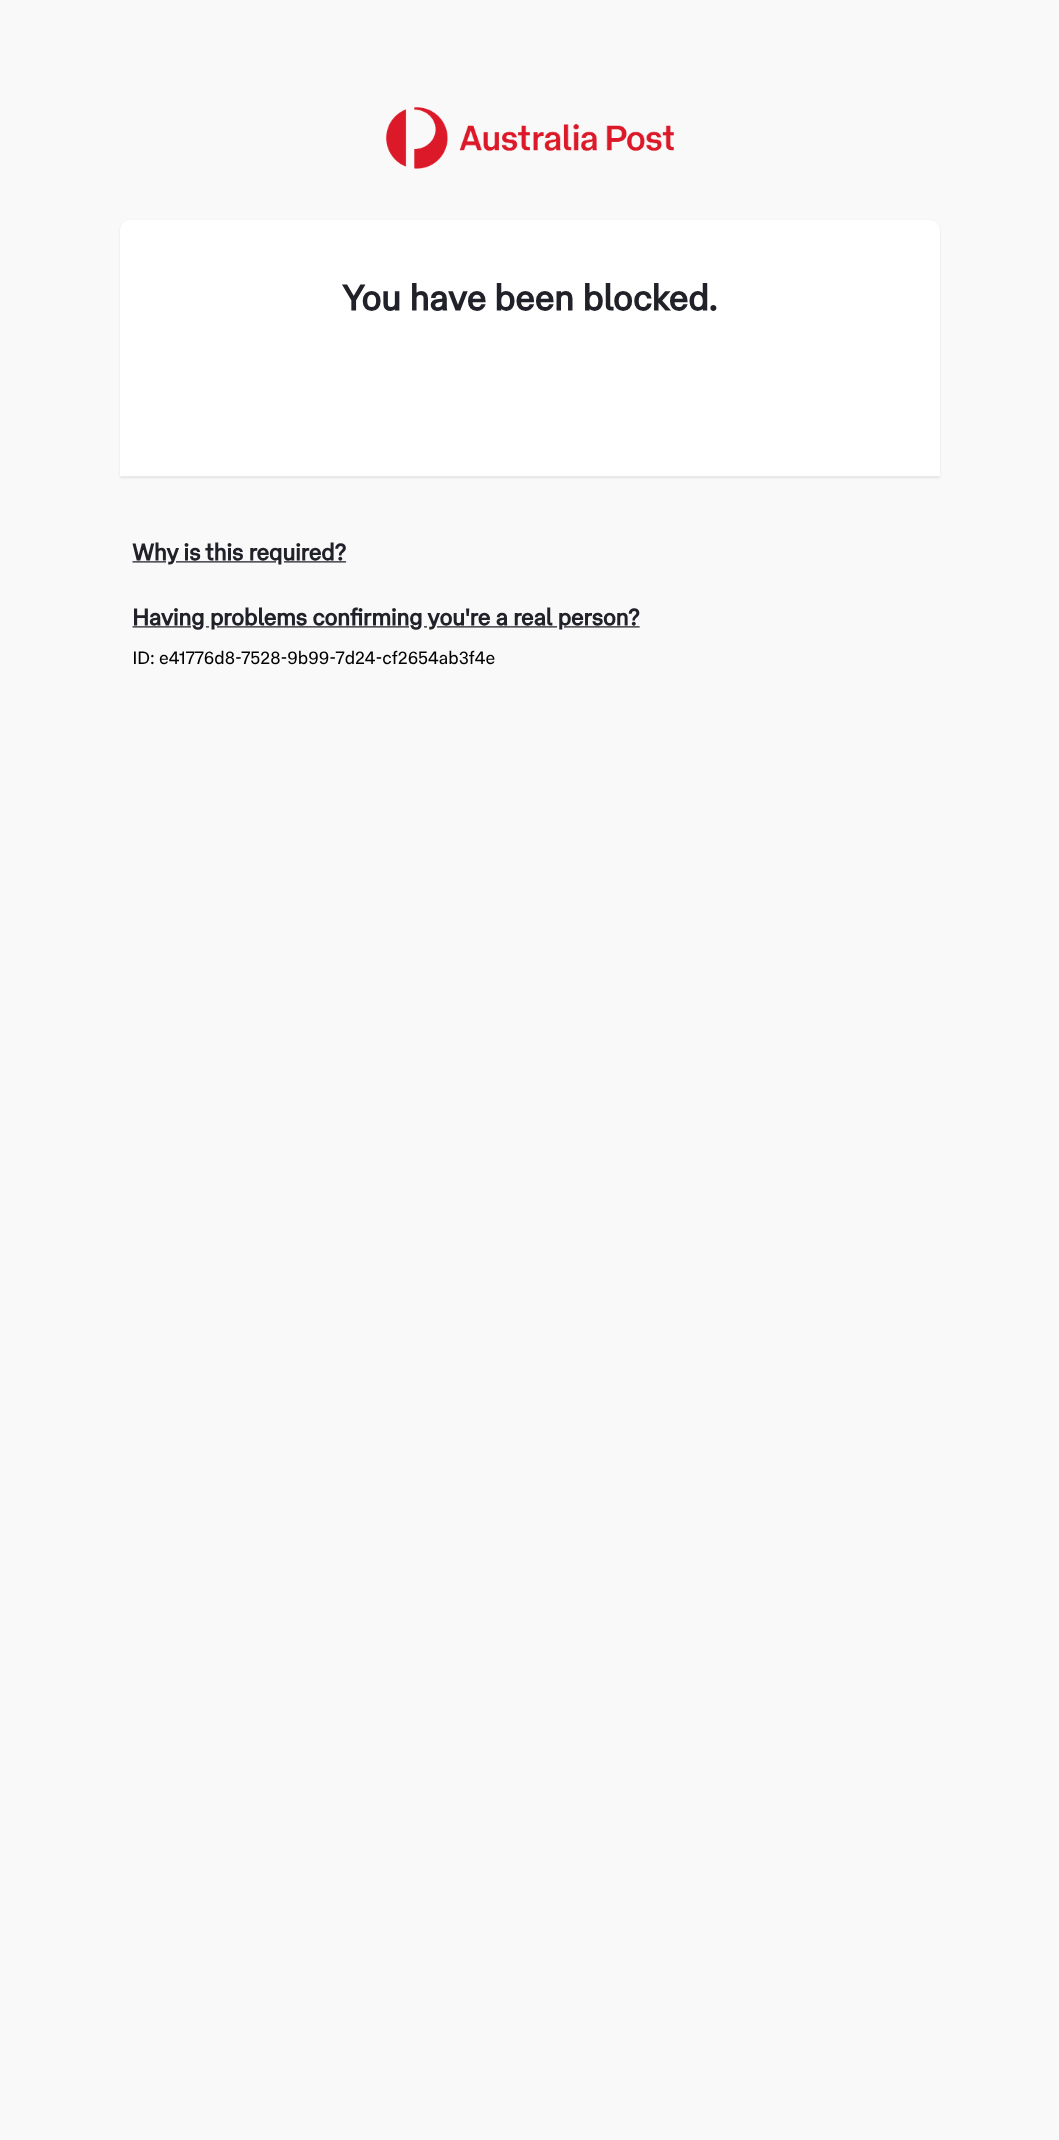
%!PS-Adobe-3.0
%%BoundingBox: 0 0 1059 2140
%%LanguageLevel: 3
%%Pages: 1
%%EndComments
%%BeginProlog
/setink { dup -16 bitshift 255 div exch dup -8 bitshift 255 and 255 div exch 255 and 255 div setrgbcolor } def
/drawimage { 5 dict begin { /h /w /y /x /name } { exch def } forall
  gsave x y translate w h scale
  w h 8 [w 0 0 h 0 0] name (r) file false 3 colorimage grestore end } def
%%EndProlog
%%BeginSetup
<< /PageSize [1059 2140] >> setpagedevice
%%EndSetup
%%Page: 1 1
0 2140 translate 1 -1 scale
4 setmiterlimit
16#FFFFFF setink
0 0 1059 2140 rectfill
(img1.raw) 0 0 1059 2140 drawimage
showpage
%%EOF
